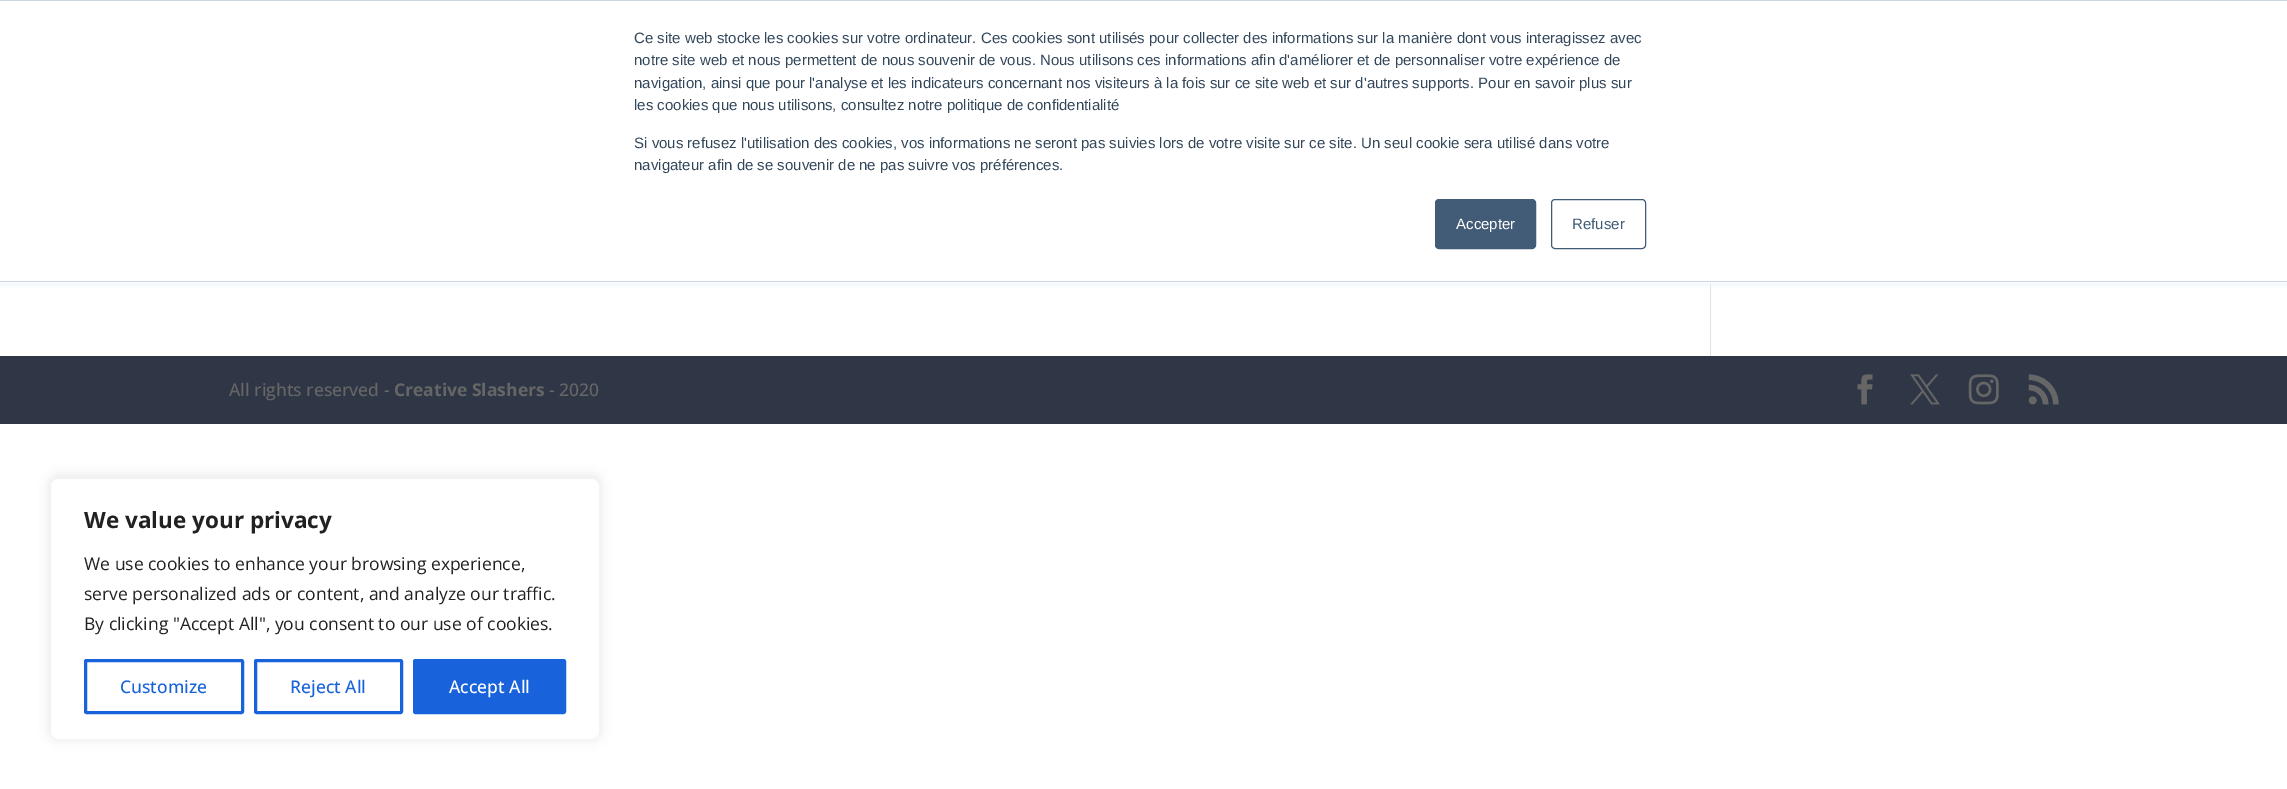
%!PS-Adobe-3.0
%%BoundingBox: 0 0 2287 789
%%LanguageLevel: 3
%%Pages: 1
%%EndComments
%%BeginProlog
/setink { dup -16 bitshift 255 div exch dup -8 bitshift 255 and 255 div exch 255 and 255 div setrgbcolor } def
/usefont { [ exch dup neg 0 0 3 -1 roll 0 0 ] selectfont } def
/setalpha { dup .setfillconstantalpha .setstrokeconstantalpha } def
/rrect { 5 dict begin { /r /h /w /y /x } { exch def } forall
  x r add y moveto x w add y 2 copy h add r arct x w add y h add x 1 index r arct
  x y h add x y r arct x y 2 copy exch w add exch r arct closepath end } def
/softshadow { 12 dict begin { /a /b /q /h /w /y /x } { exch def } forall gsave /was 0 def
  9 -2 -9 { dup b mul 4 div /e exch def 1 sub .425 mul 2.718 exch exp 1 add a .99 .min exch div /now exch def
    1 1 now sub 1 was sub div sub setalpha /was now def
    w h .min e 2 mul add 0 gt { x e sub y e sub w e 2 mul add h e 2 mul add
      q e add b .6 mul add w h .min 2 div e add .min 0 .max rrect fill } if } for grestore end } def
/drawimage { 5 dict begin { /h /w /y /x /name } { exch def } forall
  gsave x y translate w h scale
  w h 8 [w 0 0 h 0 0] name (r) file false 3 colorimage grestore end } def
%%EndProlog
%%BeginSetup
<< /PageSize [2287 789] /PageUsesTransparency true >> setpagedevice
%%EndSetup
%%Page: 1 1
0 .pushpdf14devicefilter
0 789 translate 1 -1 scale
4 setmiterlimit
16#FFFFFF setink
0 0 2287 789 rectfill
16#E2E2E2 setink
1710 283 1 73 rectfill
16#EAF0F6 setink
0 1 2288 283 0 3 1 softshadow
[
    [0 1 2287 282 16#FFFFFF]
    [0 0 2287 1 16#CBD6E2]
    [0 281 2287 1 16#CBD6E2]
] { aload pop setink rectfill } forall
/LiberationSans-Regular 15 usefont
16#33475B setink
[
    [(Ce site web stocke les cookies sur votre ordinateur. Ces cookies sont utilisés pour collecter des informations sur la manière dont vous interagissez avec) 634 43]
    [(notre site web et nous permettent de nous souvenir de vous. Nous utilisons ces informations afin d'améliorer et de personnaliser votre expérience de) 634 65]
    [(navigation, ainsi que pour l'analyse et les indicateurs concernant nos visiteurs à la fois sur ce site web et sur d'autres supports. Pour en savoir plus sur) 634 88]
    [(les cookies que nous utilisons, consultez notre politique de confidentialité) 634 110]
    [(Si vous refusez l'utilisation des cookies, vos informations ne seront pas suivies lors de votre visite sur ce site. Un seul cookie sera utilisé dans votre) 634 148]
    [(navigateur afin de se souvenir de ne pas suivre vos préférences.) 634 170]
] { aload pop moveto show } forall
16#425B76 setink
1435.5 199.5 100 49 3.5 rrect gsave fill grestore
stroke
16#FFFFFF setink
1456 229 moveto (Accepter) show
16#425B76 setink
1551.5 199.5 94 49 3.5 rrect stroke
1572 229 moveto (Refuser) show
16#2F3645 setink
0 356 2287 68 rectfill
/OpenSans-Medium 17.5 usefont
16#666666 setink
229 396 moveto (All rights reserved -) show
/OpenSans-Bold 17.5 usefont
394 396 moveto (Creative Slashers) show
/OpenSans-Medium 17.5 usefont
549 396 moveto (- 2020) show
(img1.raw) 1857 374 16 31 drawimage
(img2.raw) 1910 374 30 31 drawimage
(img3.raw) 1968 374 31 31 drawimage
(img4.raw) 2028 374 31 31 drawimage
gsave
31 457 moveto 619 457 lineto 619 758 lineto 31 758 lineto closepath 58 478 moveto 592 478 lineto 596.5 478 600 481.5 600 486 curveto 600 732 lineto 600 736.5 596.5 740 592 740 curveto 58 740 lineto 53.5 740 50 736.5 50 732 curveto 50 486 lineto 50 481.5 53.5 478 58 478 curveto closepath eoclip newpath
16#ACABAB setink
50 476 550 263 8 6 0.3 softshadow
grestore
16#F4F4F4 setink
50.5 478.5 549 261 7.5 rrect stroke
/OpenSans-Bold 22.5 usefont
16#212121 setink
84 528 moveto (We value your privacy) show
/OpenSans-Regular 17.5 usefont
[
    [(We use cookies to enhance your browsing experience,) 84 570]
    [(serve personalized ads or content, and analyze our traffic.) 84 600]
    [(By clicking "Accept All", you consent to our use of cookies.) 84 630]
] { aload pop moveto show } forall
16#1863DC setink
3 setlinewidth
85.5 660.5 157 52 1 rrect stroke
/OpenSans-Medium 17.5 usefont
120 693 moveto (Customize) show
255.5 660.5 146 52 1 rrect stroke
290 693 moveto (Reject All) show
414.5 660.5 150 52 1 rrect gsave fill grestore
stroke
16#FFFFFF setink
449 693 moveto (Accept All) show
.poppdf14devicefilter showpage
%%EOF
